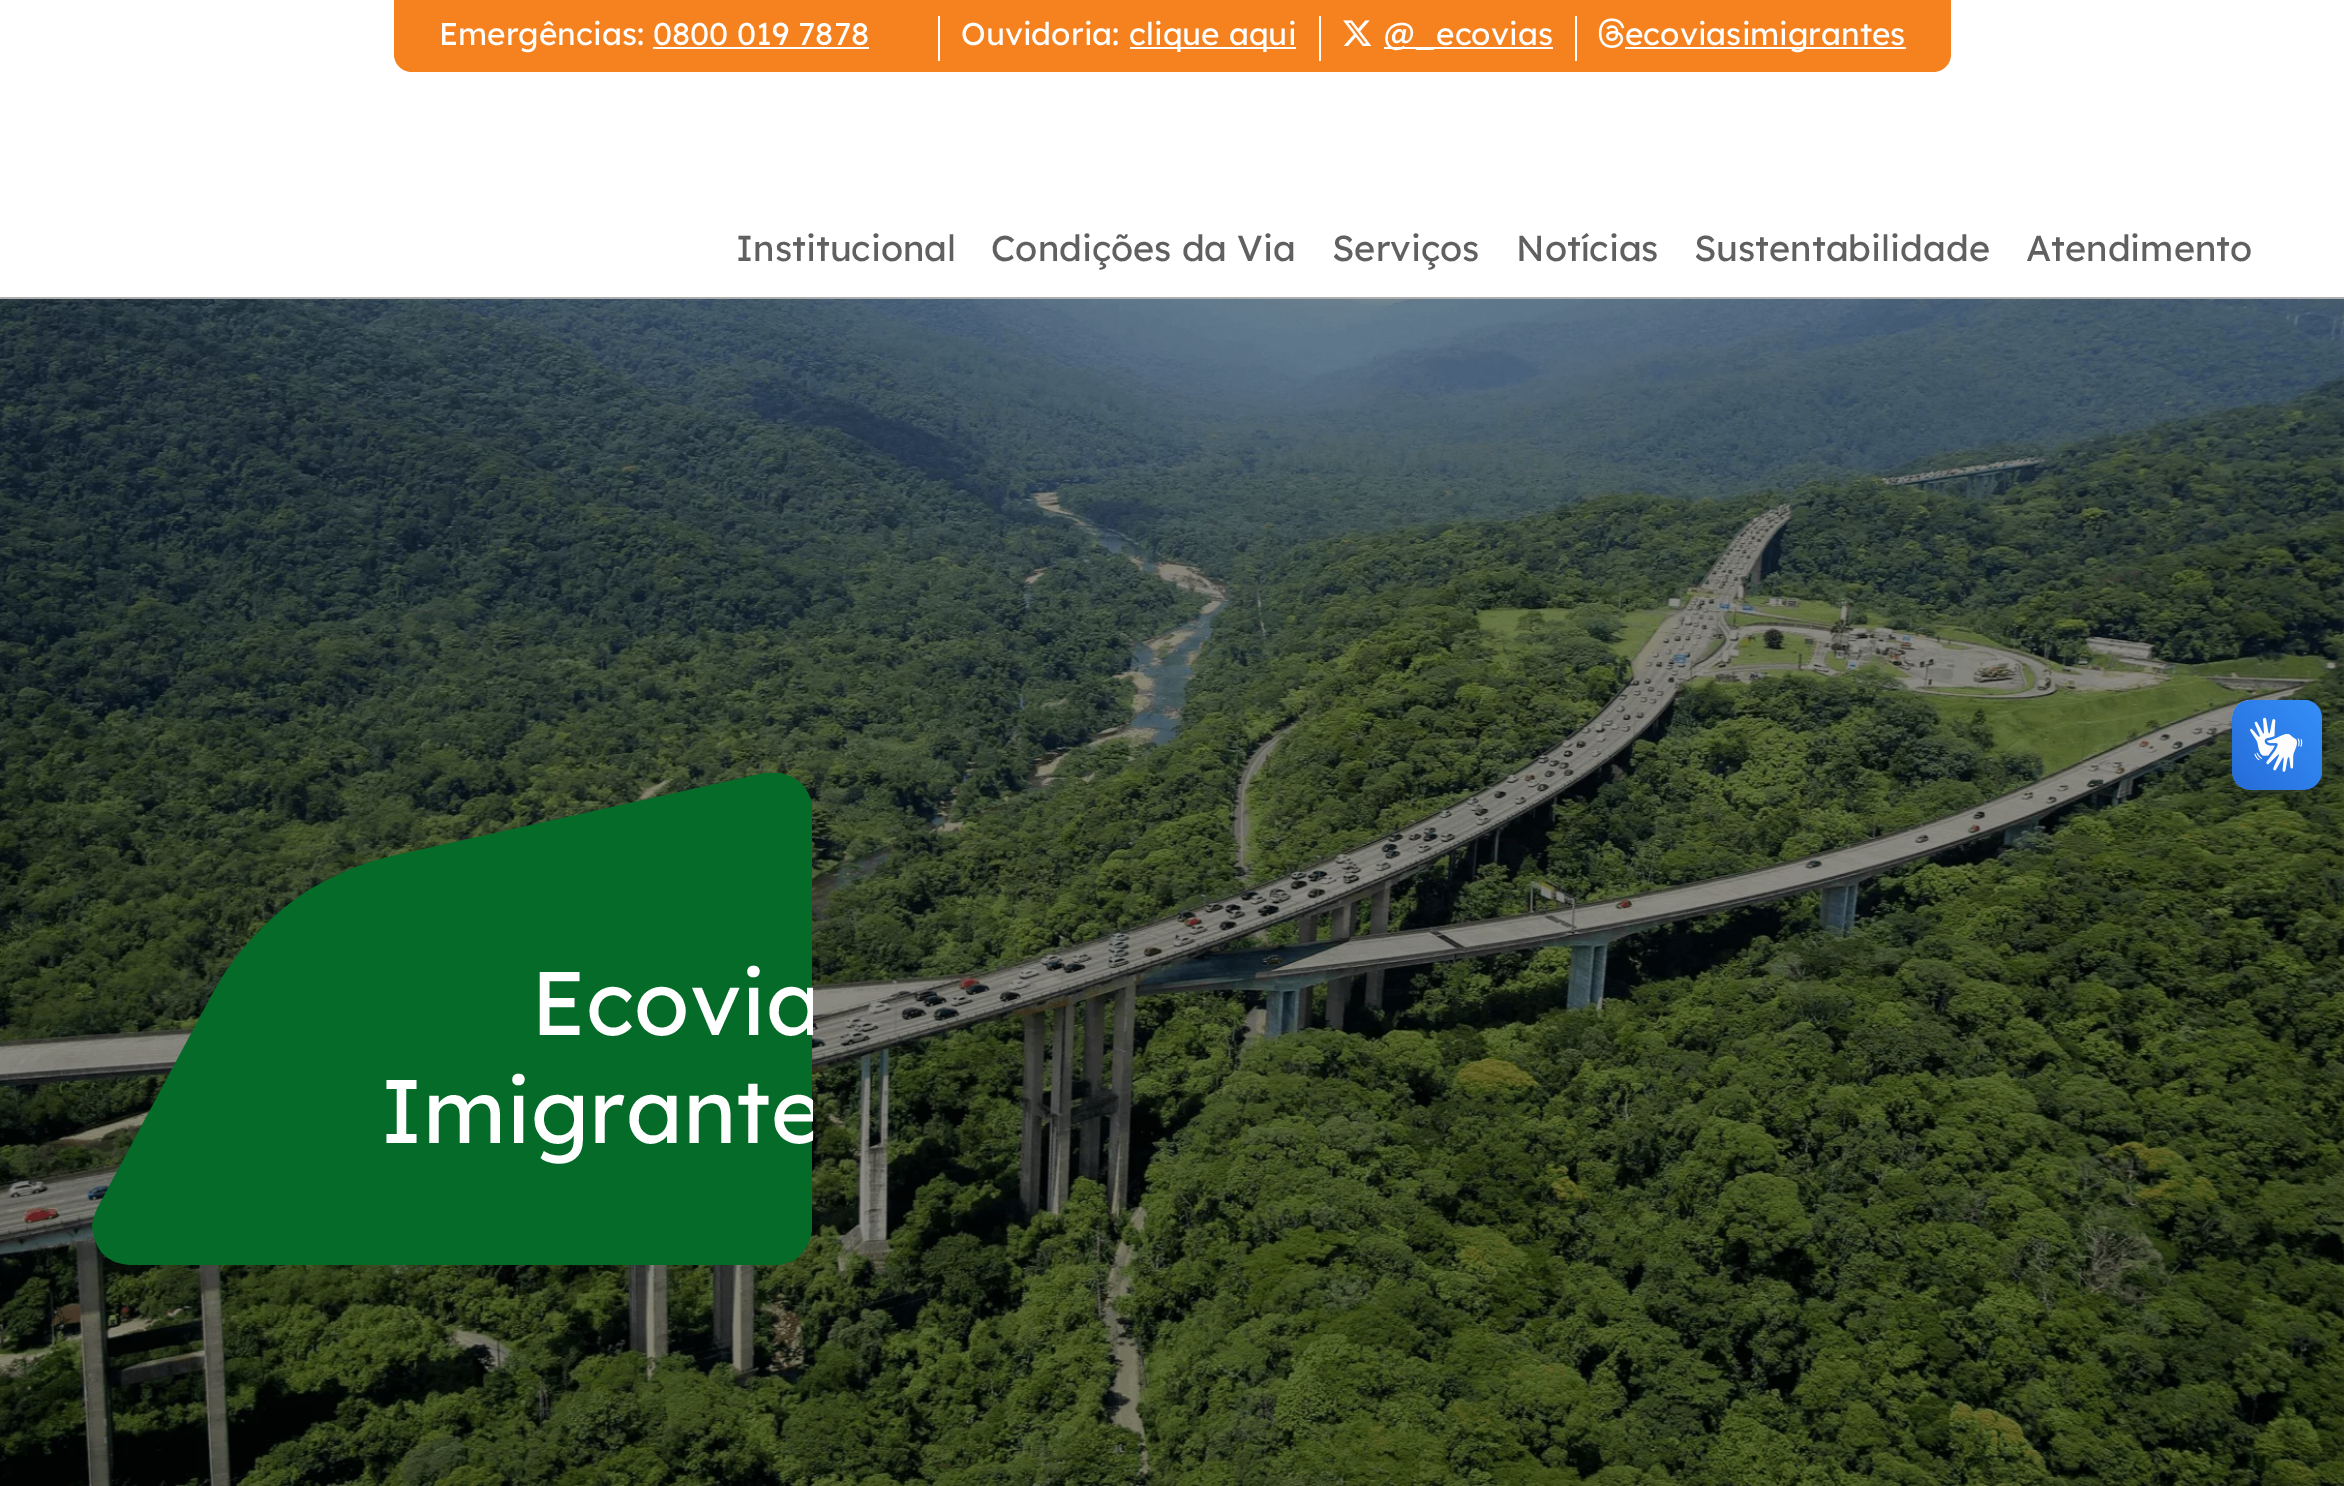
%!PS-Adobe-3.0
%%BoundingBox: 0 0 2344 1486
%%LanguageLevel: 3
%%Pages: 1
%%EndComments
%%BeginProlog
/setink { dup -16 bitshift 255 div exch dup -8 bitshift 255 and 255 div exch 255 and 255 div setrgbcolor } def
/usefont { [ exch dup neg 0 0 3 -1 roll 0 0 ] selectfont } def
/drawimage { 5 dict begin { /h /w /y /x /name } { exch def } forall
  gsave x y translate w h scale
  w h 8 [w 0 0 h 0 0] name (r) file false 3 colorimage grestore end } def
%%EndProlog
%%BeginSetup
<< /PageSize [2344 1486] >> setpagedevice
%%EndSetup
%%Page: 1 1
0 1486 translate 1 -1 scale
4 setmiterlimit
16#FFFFFF setink
0 0 2344 1486 rectfill
16#AEAEAE setink
0 297 2344 2 rectfill
16#F5821F setink
394 0 moveto 1951 0 lineto 1951 54 lineto 1951 64 1943 72 1933 72 curveto 412 72 lineto 402 72 394 64 394 54 curveto closepath fill
/Lexend-Regular 31.5 usefont
16#FFFFFF setink
439 45 moveto (Emergências: 0800 019 7878) show
653 47 216 2 rectfill
938 16 2 45 rectfill
961 45 moveto (Ouvidoria:) show
1130 47 166 2 rectfill
1129 45 moveto (clique aqui) show
1319 16 2 45 rectfill
(img1.raw) 1343 20 29 26 drawimage
1384 47 169 2 rectfill
1384 45 moveto (@_ecovias) show
1575 16 2 45 rectfill
(img2.raw) 1598 18 27 30 drawimage
1625 47 281 2 rectfill
1625 45 moveto (ecoviasimigrantes) show
/Lexend-Regular 36 usefont
16#606060 setink
[
    [(Institucional) 736 261]
    [(Condições da Via) 991 261]
    [(Serviços) 1332 261]
    [(Notícias) 1516 261]
    [(Sustentabilidade) 1694 261]
    [(Atendimento) 2026 261]
] { aload pop moveto show } forall
(img3.raw) 0 299 2344 1187 drawimage
16#056B28 setink
392 856 moveto 765 773 lineto 773 773 lineto 780 773 lineto 786 775 lineto 792 777 lineto 798 781 lineto 803 785 lineto 807 791 lineto 810 797 lineto 812 804 lineto 812 807 lineto 812 1231 lineto 810 1239 lineto 808 1244 lineto 805 1249 lineto 801 1254 lineto 797 1258 lineto 792 1261 lineto 786 1263 lineto 780 1265 lineto 775 1265 lineto 130 1265 lineto 123 1264 lineto 115 1262 lineto 108 1258 lineto 102 1253 lineto 98 1247 lineto 95 1240 lineto 93 1232 lineto 92 1225 lineto 94 1217 lineto 97 1209 lineto 214 991 lineto 226 971 lineto 240 952 lineto 255 935 lineto 271 919 lineto 289 904 lineto 307 891 lineto 327 880 lineto 348 870 lineto 370 862 lineto closepath fill
gsave
392.5 856 moveto 765.5 773.5 lineto 772.5 772.5 lineto 779.5 773 lineto 786 774.5 lineto 792.5 777 lineto 798 781 lineto 803 785.5 lineto 807 791 lineto 810 797 lineto 811.5 803.5 lineto 812.5 810.5 lineto 812.5 1227 lineto 812 1233 lineto 810.5 1239 lineto 808 1244.5 lineto 805 1249.5 lineto 801 1254 lineto 796.5 1257.5 lineto 791.5 1261 lineto 786 1263 lineto 780 1264.5 lineto 774 1265 lineto 131 1265 lineto 122.5 1264 lineto 115 1261.5 lineto 108 1258 lineto 102.5 1252.5 lineto 98 1246.5 lineto 94.5 1239.5 lineto 92.5 1232.5 lineto 92.5 1224.5 lineto 93.5 1216.5 lineto 97 1209 lineto 214 991 lineto 226 971 lineto 239.5 952 lineto 254.5 935 lineto 271 919 lineto 288.5 904 lineto 307.5 891 lineto 327.5 880 lineto 348 870 lineto 370 862.5 lineto 392.5 856.5 lineto closepath clip newpath
/Lexend-Regular 90 usefont
16#FFFFFF setink
531 1035 moveto (Ecovia) show
380 1143 moveto (Imigrante) show
grestore
(img4.raw) 2232 699 90 91 drawimage
(img5.raw) 2232 700 90 90 drawimage
showpage
%%EOF
